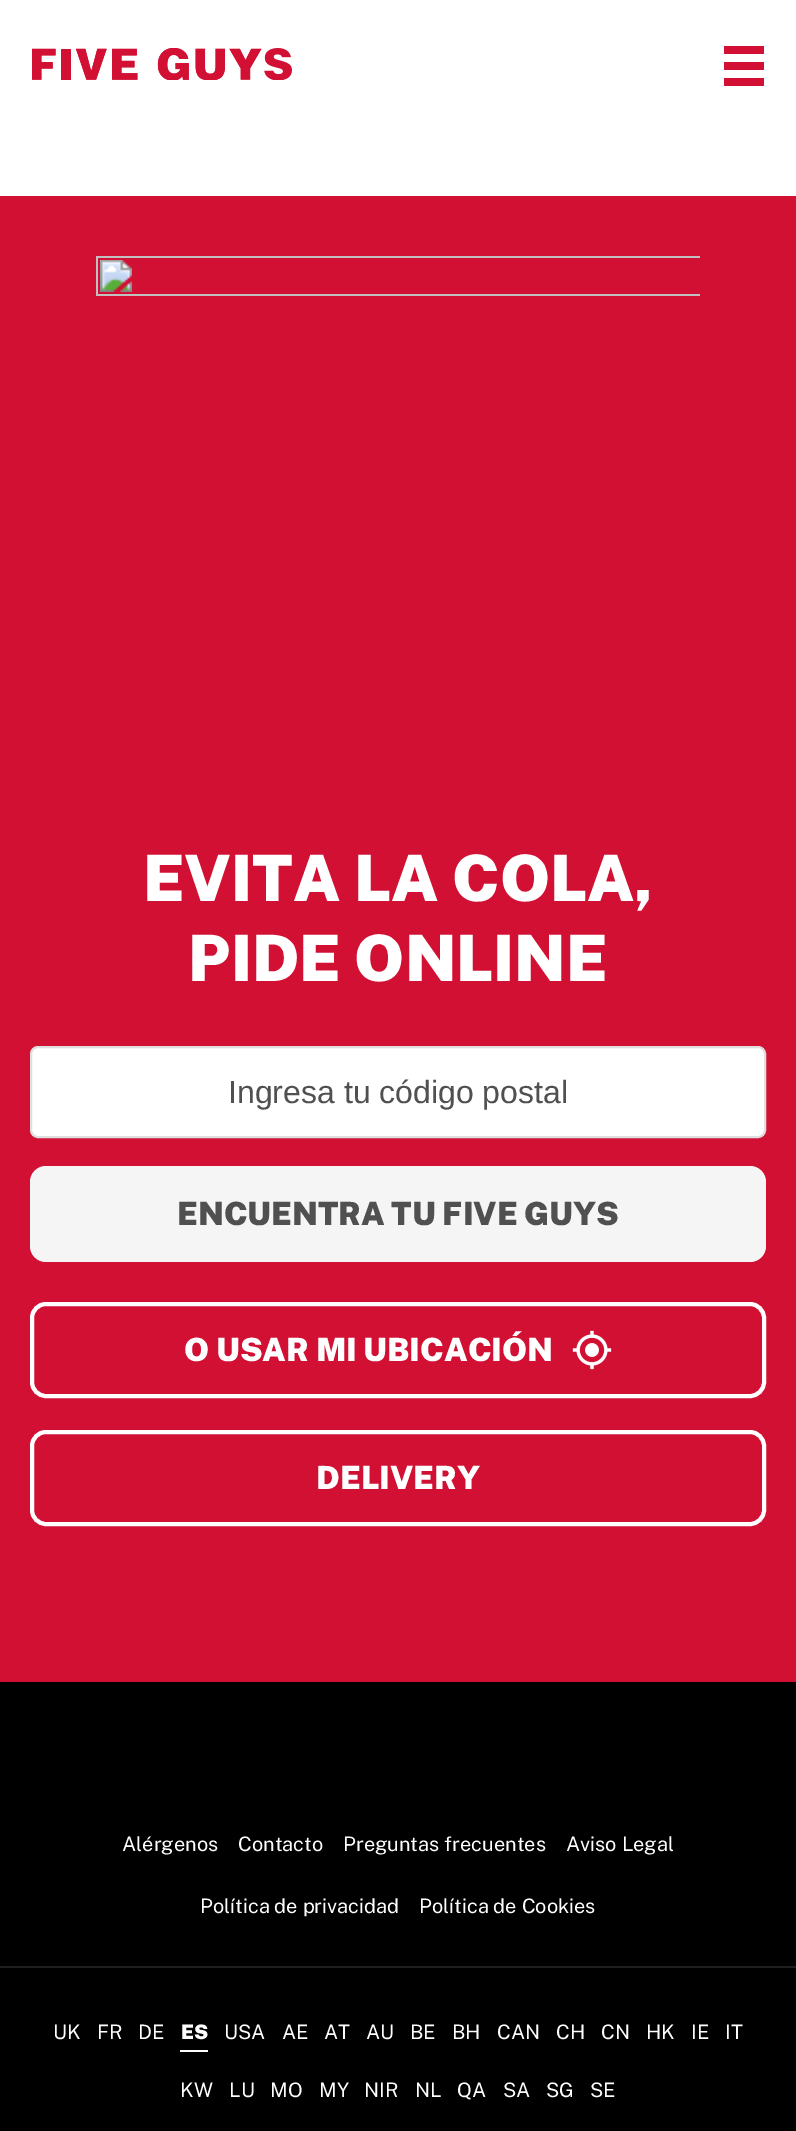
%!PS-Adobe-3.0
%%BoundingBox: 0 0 796 2131
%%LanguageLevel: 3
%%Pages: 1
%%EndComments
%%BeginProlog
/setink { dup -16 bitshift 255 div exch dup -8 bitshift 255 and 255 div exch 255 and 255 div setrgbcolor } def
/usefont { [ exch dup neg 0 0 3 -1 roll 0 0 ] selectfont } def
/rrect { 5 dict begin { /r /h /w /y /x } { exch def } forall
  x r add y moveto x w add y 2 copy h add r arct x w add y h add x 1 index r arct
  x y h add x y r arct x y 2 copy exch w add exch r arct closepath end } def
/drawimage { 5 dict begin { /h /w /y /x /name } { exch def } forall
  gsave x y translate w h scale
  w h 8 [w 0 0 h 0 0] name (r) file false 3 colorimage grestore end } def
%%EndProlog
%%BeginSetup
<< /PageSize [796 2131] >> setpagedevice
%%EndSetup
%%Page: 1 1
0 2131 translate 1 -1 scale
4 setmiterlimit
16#FFFFFF setink
0 0 796 2131 rectfill
(img1.raw) 32 48 260 32 drawimage
[
    [724 46 40 8 16#D21033]
    [724 62 40 8 16#D21033]
    [724 78 40 8 16#D21033]
    [0 196 796 1486 16#D21033]
] { aload pop setink rectfill } forall
(img2.raw) 96 256 604 40 drawimage
/PublicSans-Black 64 usefont
16#FFFFFF setink
143 901 moveto (EVITA LA COLA,) show
188 981 moveto (PIDE ONLINE) show
31 1047 734 90 7 rrect gsave fill grestore
16#DFDFDF setink
2 setlinewidth
stroke
/LiberationSans-Regular 32 usefont
16#505050 setink
228 1103 moveto (Ingresa tu código postal) show
16#F5F5F5 setink
30 1166 736 96 16 rrect fill
/PublicSans-Black 32 usefont
16#505050 setink
177 1225 moveto (ENCUENTRA TU FIVE GUYS) show
16#FFFFFF setink
4 setlinewidth
32 1304 732 92 14 rrect stroke
184 1361 moveto (O USAR MI UBICACIÓN) show
(img3.raw) 572 1330 40 40 drawimage
32 1432 732 92 14 rrect stroke
316 1489 moveto (DELIVERY) show
16#000000 setink
0 1682 796 449 rectfill
16#1F1F1F setink
0 1966 796 2 rectfill
/PublicSans-Regular 20 usefont
16#FFFFFF setink
[
    [(Alérgenos) 122 1851]
    [(Contacto) 238 1851]
    [(Preguntas frecuentes) 343 1851]
    [(Aviso Legal) 566 1851]
    [(Política de privacidad) 200 1913]
    [(Política de Cookies) 419 1913]
    [(UK) 53 2039]
    [(FR) 97 2039]
    [(DE) 138 2039]
] { aload pop moveto show } forall
/PublicSans-Black 20 usefont
181 2039 moveto (ES) show
180 2050 28 2 rectfill
/PublicSans-Regular 20 usefont
[
    [(USA) 224 2039]
    [(AE) 282 2039]
    [(AT) 324 2039]
    [(AU) 366 2039]
    [(BE) 410 2039]
    [(BH) 452 2039]
    [(CAN) 497 2039]
    [(CH) 556 2039]
    [(CN) 601 2039]
    [(HK) 646 2039]
    [(IE) 691 2039]
    [(IT) 725 2039]
    [(KW) 180 2097]
    [(LU) 229 2097]
    [(MO) 270 2097]
    [(MY) 319 2097]
    [(NIR) 364 2097]
    [(NL) 415 2097]
    [(QA) 457 2097]
    [(SA) 503 2097]
    [(SG) 546 2097]
    [(SE) 590 2097]
] { aload pop moveto show } forall
showpage
%%EOF
